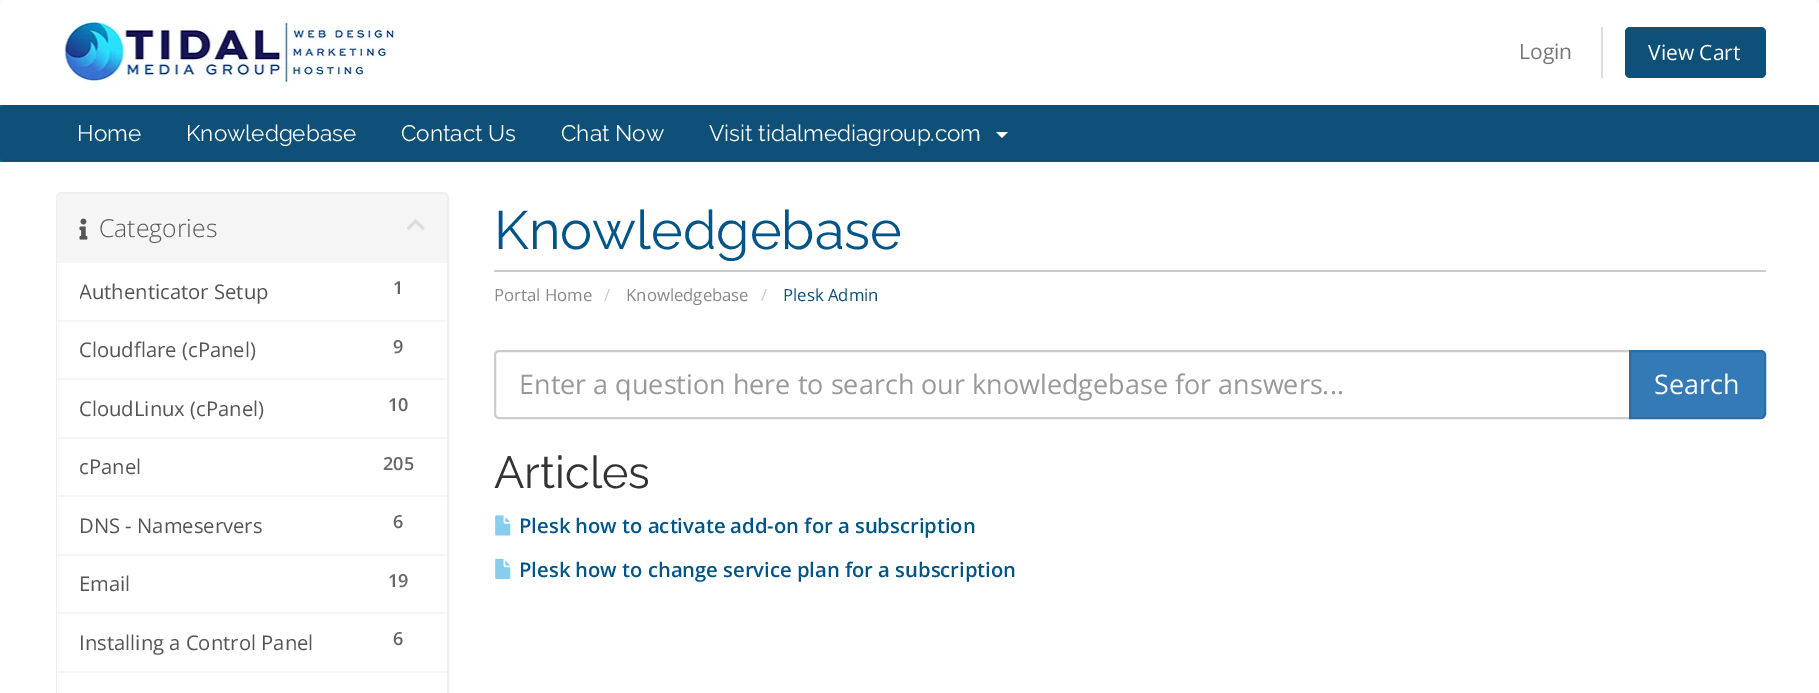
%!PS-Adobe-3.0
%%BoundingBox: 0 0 1819 693
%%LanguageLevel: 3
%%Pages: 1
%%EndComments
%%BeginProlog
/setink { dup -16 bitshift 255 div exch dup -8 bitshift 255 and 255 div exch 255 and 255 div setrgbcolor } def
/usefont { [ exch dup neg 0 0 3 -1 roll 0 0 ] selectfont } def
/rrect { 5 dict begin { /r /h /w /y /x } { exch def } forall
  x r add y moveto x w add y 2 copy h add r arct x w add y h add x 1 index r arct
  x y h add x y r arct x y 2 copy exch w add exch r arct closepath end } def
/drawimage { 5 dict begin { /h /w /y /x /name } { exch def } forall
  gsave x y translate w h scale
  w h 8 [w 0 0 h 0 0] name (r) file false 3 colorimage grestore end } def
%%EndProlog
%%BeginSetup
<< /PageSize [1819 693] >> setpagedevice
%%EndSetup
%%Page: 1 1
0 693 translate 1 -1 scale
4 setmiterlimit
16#F8F8F8 setink
0 0 1819 693 rectfill
16#FFFFFF setink
8 0 moveto 1812 0 lineto 1816.5 0 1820 3.5 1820 8 curveto 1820 105 lineto 0 105 lineto 0 8 lineto 0 3.5 3.5 0 8 0 curveto closepath fill
(img1.raw) 64 20 335 65 drawimage
/OpenSans-Regular 21 usefont
16#777777 setink
1519 59 moveto (Login) show
16#DDDDDD setink
1601 27 2 51 rectfill
16#0E5077 setink
1625 27 141 51 5 rrect fill
16#FFFFFF setink
1648 60 moveto (View Cart) show
16#006687 setink
0 105 1819 57 rectfill
16#0E5077 setink
0 105 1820 57 6 rrect fill
/Raleway-Regular 22.5 usefont
16#FFFFFF setink
[
    [(Home) 77 141]
    [(Knowledgebase) 186 141]
    [(Contact Us) 401 141]
    [(Chat Now) 561 141]
    [(Visit tidalmediagroup.com) 709 141]
] { aload pop moveto show } forall
996 132 moveto 1008 132 lineto 1002 138 lineto closepath fill
0 162 1819 531 rectfill
16#EEEEEE setink
2 setlinewidth
57 193 391 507 5 rrect stroke
16#F5F5F5 setink
62 194 moveto 442 194 lineto 445 194 447 196 447 199 curveto 447 263 lineto 57 263 lineto 57 199 lineto 57 196 59 194 62 194 curveto closepath fill
(img2.raw) 79 218 9 22 drawimage
/OpenSans-Light 24.75 usefont
16#555555 setink
99 237 moveto (Categories) show
(img3.raw) 407 219 18 11 drawimage
16#FFFFFF setink
57 263 1 57 rectfill
gsave
80 273 291 36 rectclip
/OpenSans-Regular 20.25 usefont
16#555555 setink
79 299 moveto (Authenticator Setup) show
grestore
/OpenSans-SemiBold 18 usefont
16#666666 setink
393 294 moveto (1) show
[
    [57 322 1 56 16#FFFFFF]
    [57 320 390 2 16#F5F5F5]
    [57 378 390 2 16#F5F5F5]
] { aload pop setink rectfill } forall
/OpenSans-Regular 20.25 usefont
16#555555 setink
79 357 moveto (Cloudflare \(cPanel\)) show
/OpenSans-SemiBold 18 usefont
16#666666 setink
393 353 moveto (9) show
16#FFFFFF setink
57 380 1 57 rectfill
/OpenSans-Regular 20.25 usefont
16#555555 setink
79 416 moveto (CloudLinux \(cPanel\)) show
/OpenSans-SemiBold 18 usefont
16#666666 setink
388 411 moveto (10) show
[
    [57 439 1 56 16#FFFFFF]
    [57 437 390 2 16#F5F5F5]
    [57 495 390 2 16#F5F5F5]
] { aload pop setink rectfill } forall
/OpenSans-Regular 20.25 usefont
16#555555 setink
79 474 moveto (cPanel) show
/OpenSans-SemiBold 18 usefont
16#666666 setink
383 470 moveto (205) show
16#FFFFFF setink
57 497 1 57 rectfill
/OpenSans-Regular 20.25 usefont
16#555555 setink
79 533 moveto (DNS - Nameservers) show
/OpenSans-SemiBold 18 usefont
16#666666 setink
393 528 moveto (6) show
[
    [57 556 1 56 16#FFFFFF]
    [57 554 390 2 16#F5F5F5]
    [57 612 390 2 16#F5F5F5]
] { aload pop setink rectfill } forall
/OpenSans-Regular 20.25 usefont
16#555555 setink
79 591 moveto (Email) show
/OpenSans-SemiBold 18 usefont
16#666666 setink
388 587 moveto (19) show
16#FFFFFF setink
57 614 1 57 rectfill
/OpenSans-Regular 20.25 usefont
16#555555 setink
79 650 moveto (Installing a Control Panel) show
/OpenSans-SemiBold 18 usefont
16#666666 setink
393 645 moveto (6) show
[
    [57 673 1 20 16#FFFFFF]
    [57 671 390 2 16#F5F5F5]
    [494 270 1272 2 16#CCCCCC]
] { aload pop setink rectfill } forall
/Raleway-Regular 54 usefont
16#005588 setink
494 249 moveto (Knowledgebase) show
/OpenSans-Regular 16.75 usefont
16#888888 setink
494 301 moveto (Portal Home) show
16#CCCCCC setink
604 301 moveto (/) show
16#888888 setink
626 301 moveto (Knowledgebase) show
16#CCCCCC setink
761 301 moveto (/) show
16#0E5077 setink
783 301 moveto (Plesk Admin) show
16#CCCCCC setink
499 351 moveto 1630 351 lineto 1630 418 lineto 499 418 lineto 497 418 495 416 495 414 curveto 495 355 lineto 495 353 497 351 499 351 curveto closepath stroke
/OpenSans-Regular 27 usefont
16#999999 setink
519 394 moveto (Enter a question here to search our knowledgebase for answers...) show
16#337AB7 setink
1630 351 moveto 1761 351 lineto 1763 351 1765 353 1765 355 curveto 1765 414 lineto 1765 416 1763 418 1761 418 curveto 1630 418 lineto closepath gsave fill grestore
16#2E6DA4 setink
stroke
16#FFFFFF setink
1654 394 moveto (Search) show
/Raleway-Regular 45 usefont
16#333333 setink
494 488 moveto (Articles) show
(img4.raw) 495 515 16 21 drawimage
/OpenSans-SemiBold 20.2 usefont
16#005588 setink
519 533 moveto (Plesk how to activate add-on for a subscription) show
(img5.raw) 495 558 16 21 drawimage
519 577 moveto (Plesk how to change service plan for a subscription) show
showpage
%%EOF
